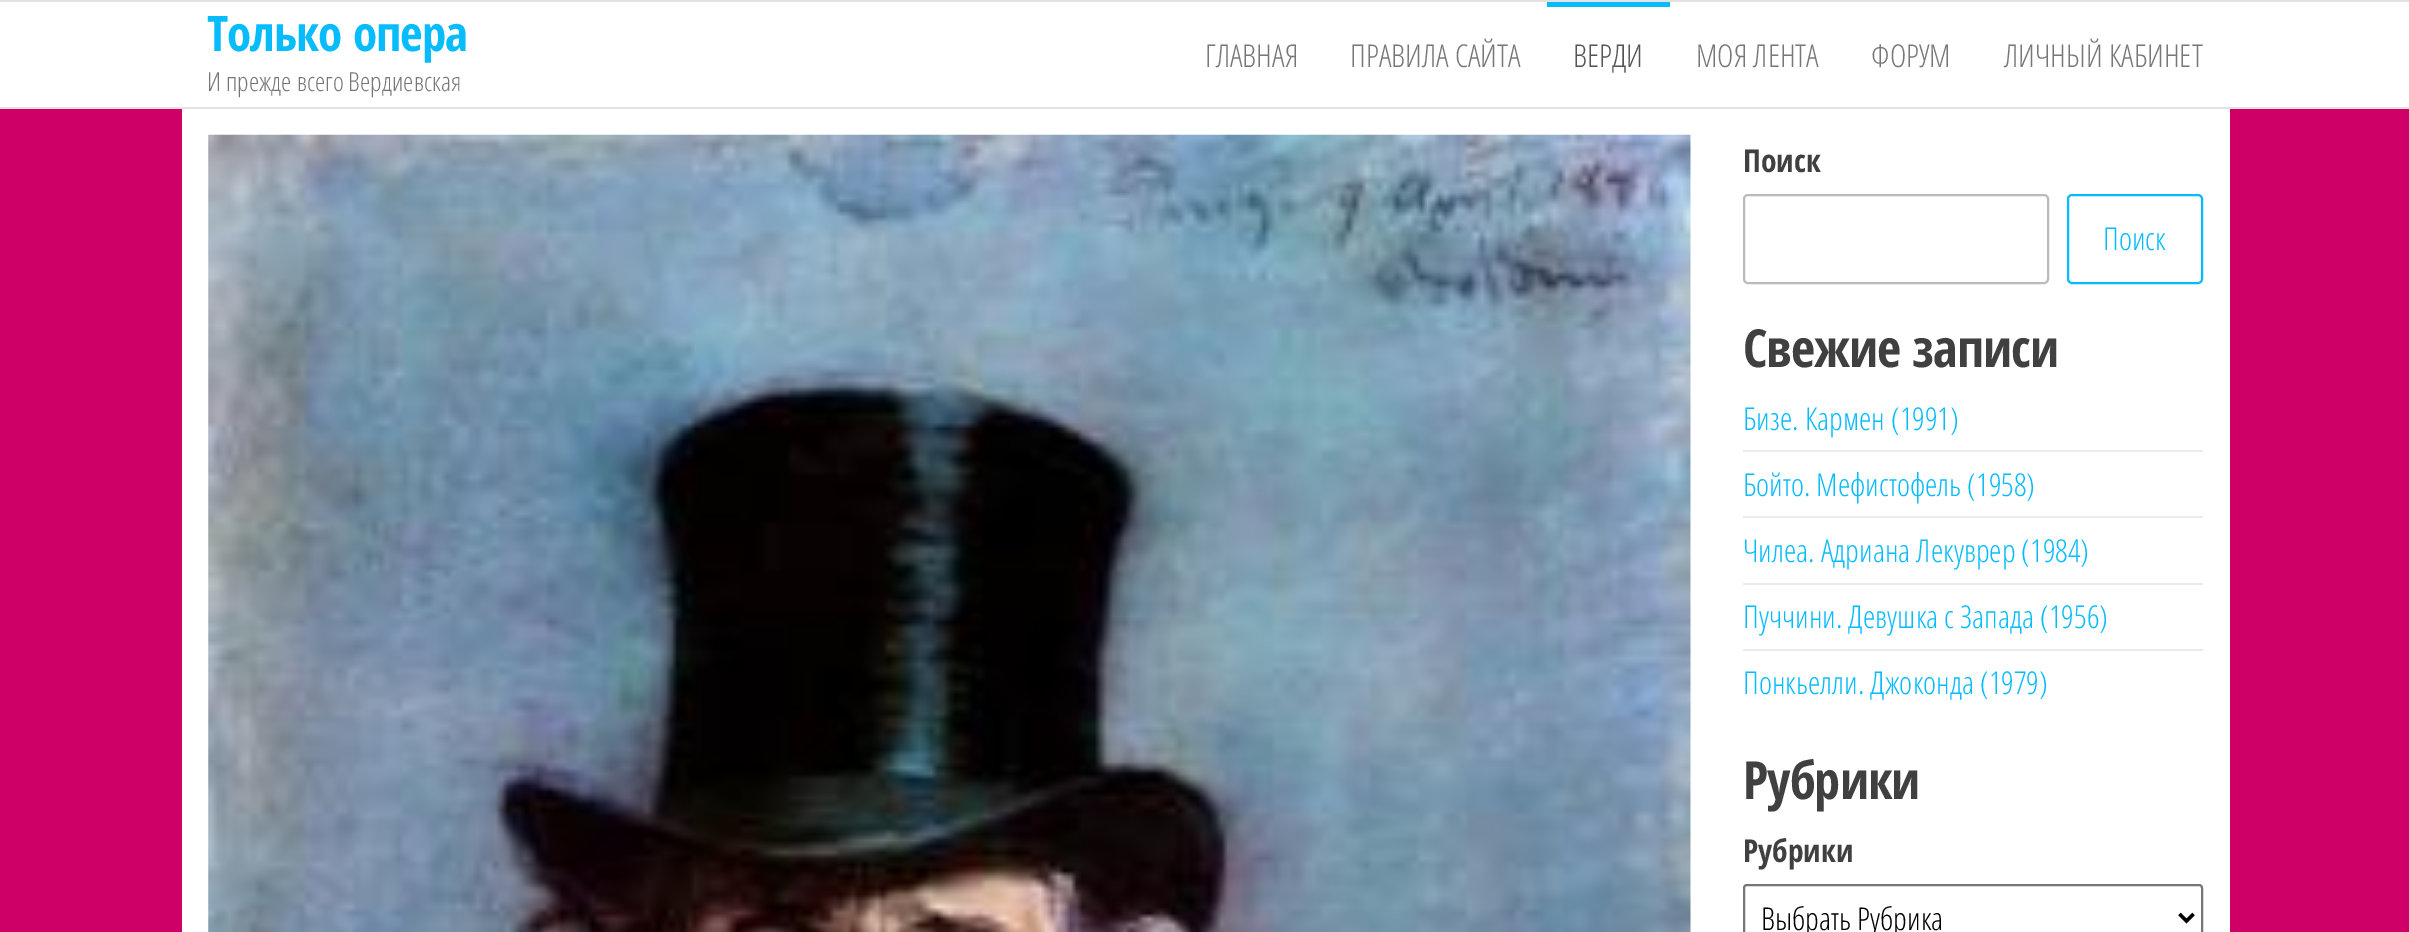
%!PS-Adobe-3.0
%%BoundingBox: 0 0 2409 932
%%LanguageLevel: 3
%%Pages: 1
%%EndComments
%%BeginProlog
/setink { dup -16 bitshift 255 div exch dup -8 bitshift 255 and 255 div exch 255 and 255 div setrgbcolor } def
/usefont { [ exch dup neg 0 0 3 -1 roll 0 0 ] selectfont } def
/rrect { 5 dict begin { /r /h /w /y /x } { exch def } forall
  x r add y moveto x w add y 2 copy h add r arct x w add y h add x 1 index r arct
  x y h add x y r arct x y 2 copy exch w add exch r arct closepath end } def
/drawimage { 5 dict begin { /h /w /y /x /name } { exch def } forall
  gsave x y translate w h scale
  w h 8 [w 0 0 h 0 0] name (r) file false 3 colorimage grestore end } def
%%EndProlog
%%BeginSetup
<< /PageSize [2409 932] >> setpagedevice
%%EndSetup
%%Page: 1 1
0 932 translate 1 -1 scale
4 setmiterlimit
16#CE0067 setink
0 0 2409 932 rectfill
[
    [0 2 2409 105 16#FFFFFF]
    [0 0 2409 2 16#E2E2E2]
    [0 107 2409 2 16#E2E2E2]
] { aload pop setink rectfill } forall
/OpenSansCondensed-Bold 49 usefont
16#07BCFD setink
207 51 moveto -1 0 (Только опера) ashow
/OpenSansCondensed-Light 26.25 usefont
16#777777 setink
207 91 moveto (И прежде всего Вердиевская) show
/OpenSansCondensed-Light 31.5 usefont
1205 67 moveto (ГЛАВНАЯ) show
1350 67 moveto (ПРАВИЛА САЙТА) show
16#07BCFD setink
1547 2 123 5 rectfill
16#555555 setink
1573 67 moveto (ВЕРДИ) show
16#777777 setink
[
    [(МОЯ ЛЕНТА) 1696 67]
    [(ФОРУМ) 1871 67]
    [(ЛИЧНЫЙ КАБИНЕТ) 2004 67]
] { aload pop moveto show } forall
16#FFFFFF setink
182 109 2048 823 rectfill
(img1.raw) 208 134 1483 798 drawimage
/OpenSansCondensed-Bold 31.5 usefont
16#404040 setink
1743 172 moveto (Поиск) show
16#BBBBBB setink
2 setlinewidth
1744 195 304 88 4 rrect stroke
16#07BCFD setink
2068 195 134 88 4 rrect stroke
/OpenSansCondensed-Light 31.5 usefont
2103 250 moveto (Поиск) show
/OpenSansCondensed-Bold 52.5 usefont
16#404040 setink
1743 367 moveto -1 0 (Свежие записи) ashow
16#EBEBEB setink
1743 450 460 2 rectfill
/OpenSansCondensed-Light 31.5 usefont
16#07BCFD setink
1743 430 moveto (Бизе. Кармен \(1991\)) show
16#EBEBEB setink
1743 516 460 2 rectfill
16#07BCFD setink
1743 496 moveto (Бойто. Мефистофель \(1958\)) show
16#EBEBEB setink
1743 583 460 2 rectfill
16#07BCFD setink
1743 562 moveto (Чилеа. Адриана Лекуврер \(1984\)) show
16#EBEBEB setink
1743 649 460 2 rectfill
16#07BCFD setink
1743 628 moveto (Пуччини. Девушка с Запада \(1956\)) show
1743 694 moveto (Понкьелли. Джоконда \(1979\)) show
/OpenSansCondensed-Bold 52.5 usefont
16#404040 setink
1743 799 moveto -1 0 (Рубрики) ashow
/OpenSansCondensed-Bold 31.5 usefont
1743 862 moveto (Рубрики) show
16#767676 setink
1744 885 458 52 3 rrect stroke
16#000000 setink
3.5 setlinewidth
2179.5 914 moveto 2186.5 921 lineto 2193.5 914 lineto stroke
/OpenSansCondensed-Light 31.5 usefont
1761 930 moveto (Выбрать Рубрика) show
showpage
%%EOF
